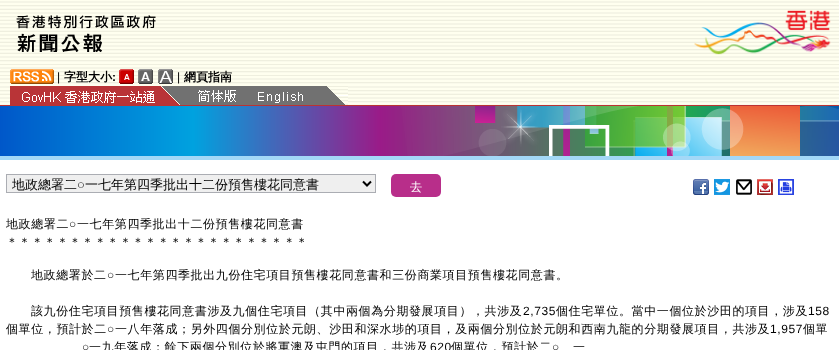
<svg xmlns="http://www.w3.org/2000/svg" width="839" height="350">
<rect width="100%" height="100%" fill="#fff"/>
<image x="0" y="0" width="839" height="105" href="media/1.png"/>
<rect y="105" width="839" height="1" fill="#b33"/>
<image x="16" y="15" width="140" height="37" href="media/2.png"/>
<image x="694" y="10" width="137" height="45" href="media/3.png"/>
<image x="10" y="69" width="44" height="15" href="media/4.png"/>
<text x="57" y="81" style="font-family:Liberation Sans;font-size:12px;fill:#000">|</text>
<text x="64" y="81" style="font-family:WenQuanYi Zen Hei;font-size:12px;font-weight:bold;fill:#000">字型大小</text>
<text x="112" y="81" style="font-family:Liberation Sans;font-size:12px;font-weight:bold;fill:#000">:</text>
<image x="119" y="69" width="15" height="15" href="media/5.png"/>
<image x="138" y="69" width="15" height="15" href="media/6.png"/>
<image x="158" y="69" width="15" height="15" href="media/7.png"/>
<text x="177" y="81" style="font-family:Liberation Sans;font-size:12px;fill:#000">|</text>
<text x="184" y="81" style="font-family:WenQuanYi Zen Hei;font-size:12px;font-weight:bold;fill:#000">網頁指南</text>
<rect x="180" y="86" width="147" height="19" fill="#717171"/>
<image x="10" y="86" width="170" height="19" href="media/8.png"/>
<image x="22" y="91" width="133" height="12" href="media/9.png"/>
<image x="198" y="90" width="38" height="12" href="media/10.png"/>
<image x="327" y="86" width="21" height="19" href="media/11.png"/>
<image x="258" y="92" width="45" height="11" href="media/12.png"/>
<image x="0" y="106" width="839" height="50" href="media/13.png"/>
<rect y="156" width="839" height="4" fill="#a3d8f7"/>
<rect x="6.5" y="174.5" width="369" height="18" fill="#efefef" stroke="#abadb3"/>
<path d="M363 181.5l4 4l4-4" fill="none" stroke="#000" stroke-width="2"/>
<text x="12" y="189" style="font-family:WenQuanYi Zen Hei;font-size:13px;font-weight:500;fill:#000">地政總署二</text>
<text x="77" y="189" style="font-family:Liberation Sans;font-size:13px;fill:#000">○</text>
<text x="85" y="189" style="font-family:WenQuanYi Zen Hei;font-size:13px;font-weight:500;fill:#000">一七年第四季批出十二份預售樓花同意書</text>
<rect x="391" y="174" width="50" height="23" rx="5" fill="#b82e8a"/>
<text x="410" y="191" style="font-family:WenQuanYi Zen Hei;font-size:12px;font-weight:500;fill:#fff">去</text>
<image x="693" y="179" width="16" height="16" href="media/14.png"/>
<image x="714" y="179" width="16" height="16" href="media/15.png"/>
<image x="736" y="179" width="16" height="16" href="media/16.png"/>
<image x="757" y="179" width="16" height="16" href="media/17.png"/>
<image x="778" y="179" width="16" height="16" href="media/18.png"/>
<text x="6" y="228" style="font-family:WenQuanYi Zen Hei;font-size:12px;font-weight:500;letter-spacing:0.6px;fill:#000">地政總署二</text>
<text x="69" y="228" style="font-family:Liberation Sans;font-size:12px;letter-spacing:0.6px;fill:#000">○</text>
<text x="77" y="228" style="font-family:WenQuanYi Zen Hei;font-size:12px;font-weight:500;letter-spacing:0.6px;fill:#000">一七年第四季批出十二份預售樓花同意書</text>
<text x="6" y="246" style="font-family:WenQuanYi Zen Hei;font-size:12px;font-weight:500;letter-spacing:0.6px;fill:#000">＊＊＊＊＊＊＊＊＊＊＊＊＊＊＊＊＊＊＊＊＊＊＊＊</text>
<text x="31" y="279" style="font-family:WenQuanYi Zen Hei;font-size:12px;font-weight:500;letter-spacing:0.6px;fill:#000">地政總署於二</text>
<text x="107" y="279" style="font-family:Liberation Sans;font-size:12px;letter-spacing:0.6px;fill:#000">○</text>
<text x="115" y="279" style="font-family:WenQuanYi Zen Hei;font-size:12px;font-weight:500;letter-spacing:0.6px;fill:#000">一七年第四季批出九份住宅項目預售樓花同意書和三份商業項目預售樓花同意書。</text>
<text x="31" y="315" style="font-family:WenQuanYi Zen Hei;font-size:12px;font-weight:500;letter-spacing:0.6px;fill:#000">該九份住宅項目預售樓花同意書涉及九個住宅項目（其中兩個為分期發展項目），共涉及</text>
<text x="523" y="315" style="font-family:Liberation Sans;font-size:12px;letter-spacing:0.6px;fill:#000">2,735</text>
<text x="556" y="315" style="font-family:WenQuanYi Zen Hei;font-size:12px;font-weight:500;letter-spacing:0.6px;fill:#000">個住宅單位。當中一個位於沙田的項目，涉及</text>
<text x="808" y="315" style="font-family:Liberation Sans;font-size:12px;letter-spacing:0.6px;fill:#000">158</text>
<text x="6" y="333" style="font-family:WenQuanYi Zen Hei;font-size:12px;font-weight:500;letter-spacing:0.6px;fill:#000">個單位，預計於二</text>
<text x="107" y="333" style="font-family:Liberation Sans;font-size:12px;letter-spacing:0.6px;fill:#000">○</text>
<text x="115" y="333" style="font-family:WenQuanYi Zen Hei;font-size:12px;font-weight:500;letter-spacing:0.6px;fill:#000">一八年落成；另外四個分別位於元朗、沙田和深水埗的項目，及兩個分別位於元朗和西南九龍的分期發展項目，共涉及</text>
<text x="770" y="333" style="font-family:Liberation Sans;font-size:12px;letter-spacing:0.6px;fill:#000">1,957</text>
<text x="803" y="333" style="font-family:WenQuanYi Zen Hei;font-size:12px;font-weight:500;letter-spacing:0.6px;fill:#000">個單</text>
<text x="82" y="351" style="font-family:Liberation Sans;font-size:12px;letter-spacing:0.6px;fill:#000">○</text>
<text x="89" y="351" style="font-family:WenQuanYi Zen Hei;font-size:12px;font-weight:500;letter-spacing:0.6px;fill:#000">一九年落成；餘下兩個分別位於將軍澳及屯門的項目，共涉及</text>
<text x="430" y="351" style="font-family:Liberation Sans;font-size:12px;letter-spacing:0.6px;fill:#000">620</text>
<text x="451" y="351" style="font-family:WenQuanYi Zen Hei;font-size:12px;font-weight:500;letter-spacing:0.6px;fill:#000">個單位，預計於二</text>
<text x="552" y="351" style="font-family:Liberation Sans;font-size:12px;letter-spacing:0.6px;fill:#000">○</text>
<text x="573" y="351" style="font-family:WenQuanYi Zen Hei;font-size:12px;font-weight:500;letter-spacing:0.6px;fill:#000">一</text>
</svg>
